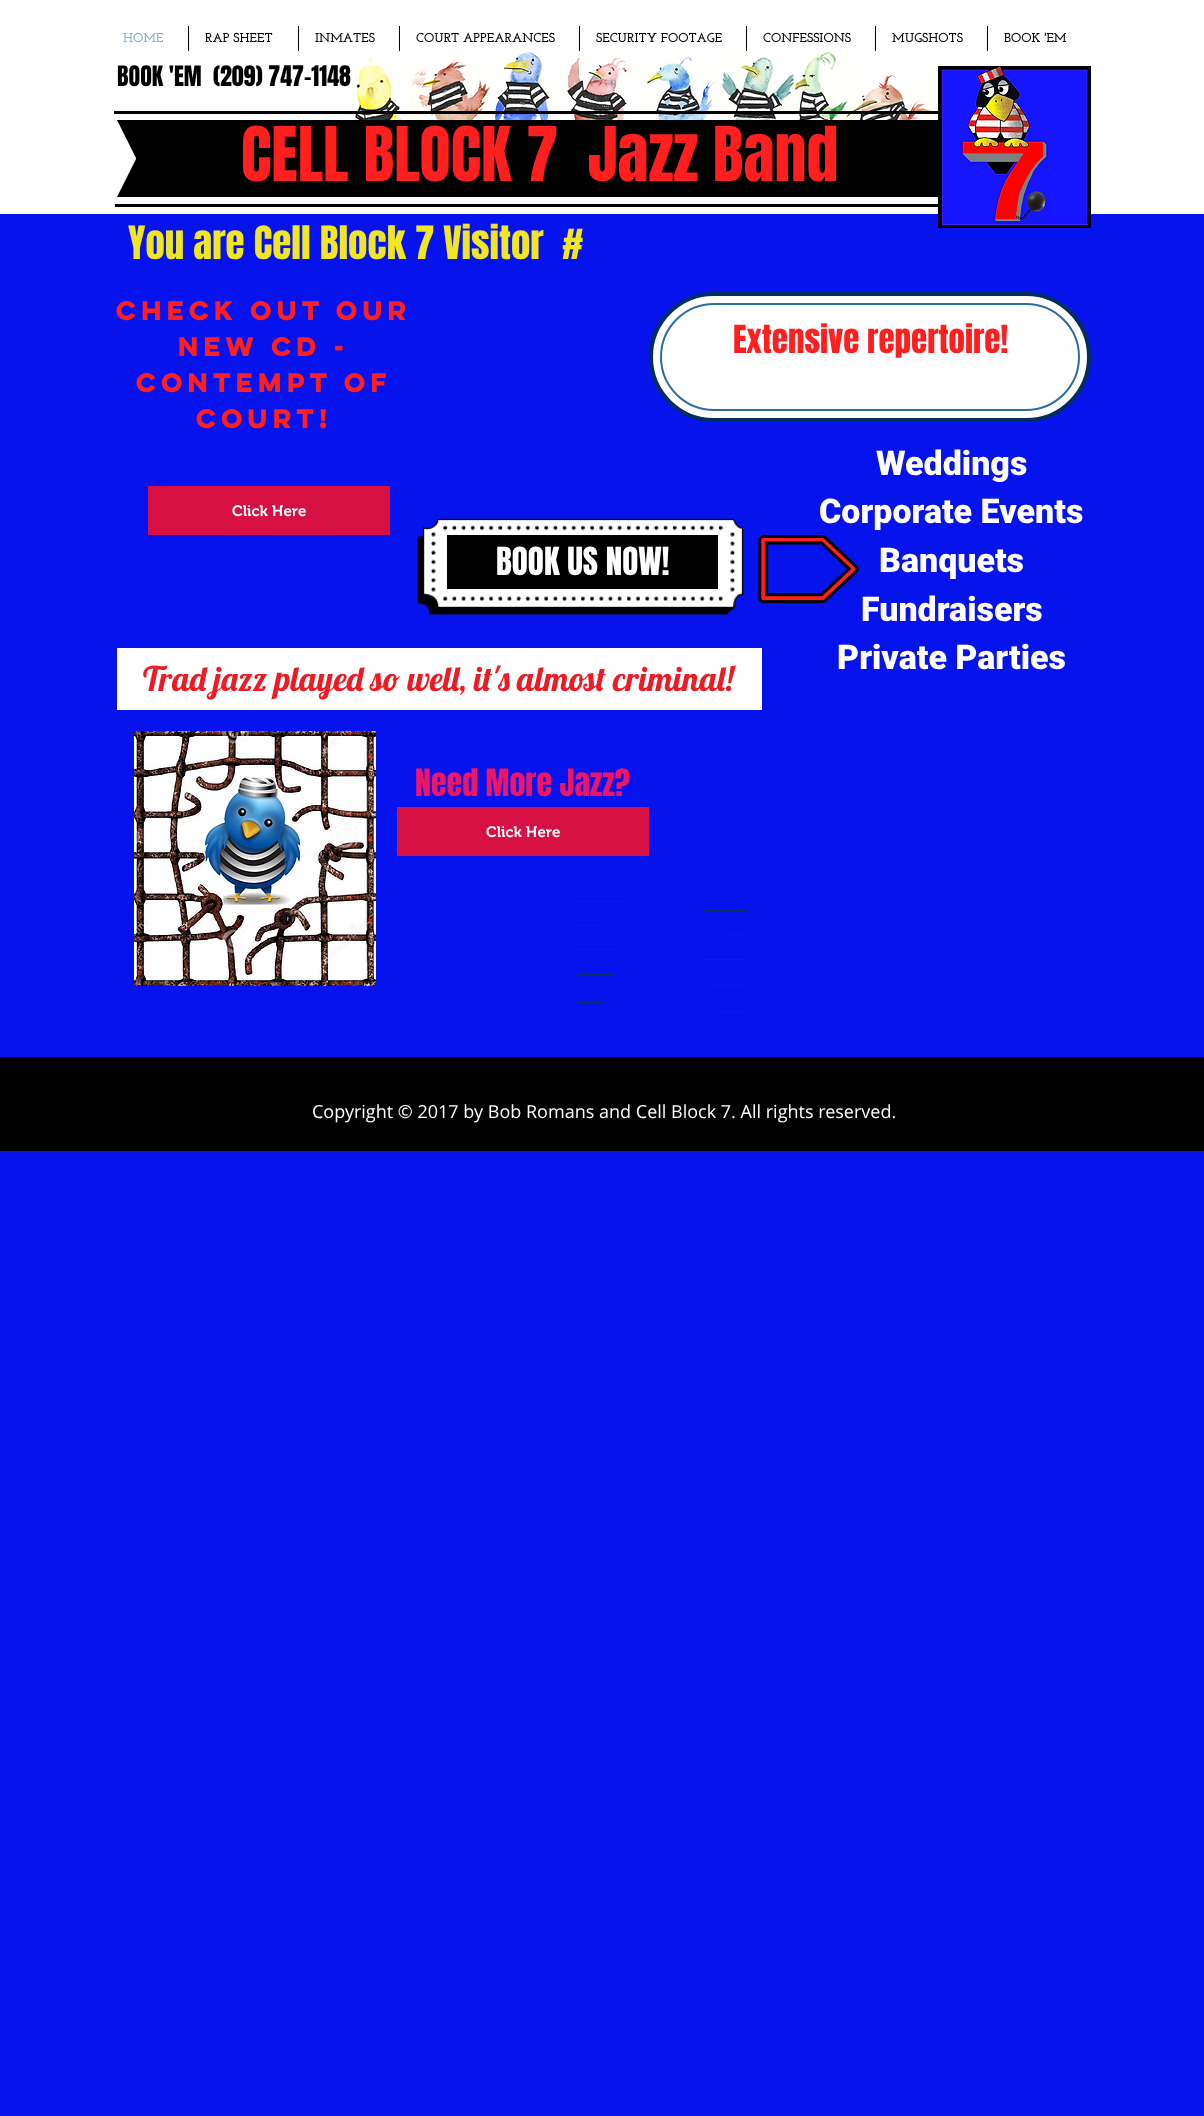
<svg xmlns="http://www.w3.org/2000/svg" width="1204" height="2116">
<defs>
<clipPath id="clip1"><rect x="117" y="120" width="483" height="39"/></clipPath>
<clipPath id="clip2"><rect x="599" y="120" width="482" height="39"/></clipPath>
<clipPath id="clip3"><rect x="117" y="158" width="483" height="39"/></clipPath>
<clipPath id="clip4"><rect x="599" y="158" width="482" height="39"/></clipPath>
</defs>
<rect width="100%" height="100%" fill="#0713ed"/>
<rect width="1204" height="214" fill="#fff"/>
<text x="123" y="42" style="font-family:Josefin Slab;font-size:13px;font-weight:bold;fill:#87b0d1">HOME</text>
<rect x="188" y="26" width="1" height="25" fill="#000"/>
<text x="205" y="42" style="font-family:Josefin Slab;font-size:13px;font-weight:bold;fill:#000">RAP SHEET</text>
<rect x="298" y="26" width="1" height="25" fill="#000"/>
<text x="315" y="42" style="font-family:Josefin Slab;font-size:13px;font-weight:bold;fill:#000">INMATES</text>
<rect x="399" y="26" width="1" height="25" fill="#000"/>
<text x="416" y="42" style="font-family:Josefin Slab;font-size:13px;font-weight:bold;fill:#000">COURT APPEARANCES</text>
<rect x="579" y="26" width="1" height="25" fill="#000"/>
<text x="596" y="42" style="font-family:Josefin Slab;font-size:13px;font-weight:bold;fill:#000">SECURITY FOOTAGE</text>
<rect x="746" y="26" width="1" height="25" fill="#000"/>
<text x="763" y="42" style="font-family:Josefin Slab;font-size:13px;font-weight:bold;fill:#000">CONFESSIONS</text>
<rect x="875" y="26" width="1" height="25" fill="#000"/>
<text x="892" y="42" style="font-family:Josefin Slab;font-size:13px;font-weight:bold;fill:#000">MUGSHOTS</text>
<rect x="987" y="26" width="1" height="25" fill="#000"/>
<text x="1004" y="42" style="font-family:Josefin Slab;font-size:13px;font-weight:bold;fill:#000">BOOK 'EM</text>
<text x="117" y="86" style="font-family:Anton;font-size:24px;fill:#000" xml:space="preserve">BOOK 'EM  (209) 747-1148</text>
<image x="351" y="51" width="581" height="69" href="media/1.png"/>
<rect x="114" y="111" width="824" height="3" fill="#000"/>
<rect x="115" y="204" width="823" height="3" fill="#000"/>
<g clip-path="url(#clip1)">
<path d="M117 120h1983l-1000 1000h-483z" fill="#000"/>
</g>
<g clip-path="url(#clip2)">
<path d="M-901 120h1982l-500 1000h-482z" fill="#000"/>
</g>
<g clip-path="url(#clip3)">
<path d="M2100 197h-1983l500-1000h483z" fill="#000"/>
</g>
<g clip-path="url(#clip4)">
<path d="M1081 197h-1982l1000-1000h482z" fill="#000"/>
</g>
<text x="241" y="181" style="font-family:Anton;font-size:64px;fill:#ff1f1f" xml:space="preserve">CELL BLOCK 7  Jazz Band</text>
<image x="938" y="66" width="153" height="162" href="media/2.png"/>
<text x="128" y="259" style="font-family:Anton;font-size:39px;fill:#f0e624" xml:space="preserve">You are Cell Block 7 Visitor  #</text>
<text x="116" y="320" style="font-family:'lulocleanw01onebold';font-size:24px;font-weight:bold;fill:#ff1f1f">Check out our</text>
<text x="178" y="356" style="font-family:'lulocleanw01onebold';font-size:24px;font-weight:bold;fill:#ff1f1f">new CD -</text>
<text x="136" y="392" style="font-family:'lulocleanw01onebold';font-size:24px;font-weight:bold;fill:#ff1f1f">Contempt of</text>
<text x="196" y="428" style="font-family:'lulocleanw01onebold';font-size:24px;font-weight:bold;fill:#ff1f1f">Court!</text>
<rect x="651" y="294" width="438" height="126" rx="63" fill="#fff" stroke="#002e5d" stroke-width="4"/>
<rect x="661" y="304" width="418" height="106" rx="53" fill="none" stroke="#2b6ca3" stroke-width="2"/>
<text x="733" y="353" style="font-family:Anton;font-size:33px;fill:#ff1f1f">Extensive repertoire!</text>
<rect x="148" y="486" width="242" height="49" fill="#d61043"/>
<text x="232" y="516" style="font-family:'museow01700';font-size:15px;font-weight:600;fill:#fff">Click Here</text>
<text x="876" y="475" style="font-family:Roboto;font-size:34px;font-weight:900;fill:#fff">Weddings</text>
<text x="819" y="523" style="font-family:Roboto;font-size:34px;font-weight:900;fill:#fff">Corporate Events</text>
<text x="879" y="572" style="font-family:Roboto;font-size:34px;font-weight:900;fill:#fff">Banquets</text>
<text x="861" y="621" style="font-family:Roboto;font-size:34px;font-weight:900;fill:#fff">Fundraisers</text>
<text x="837" y="669" style="font-family:Roboto;font-size:34px;font-weight:900;fill:#fff">Private Parties</text>
<image x="417" y="518" width="327" height="97" href="media/3.png"/>
<image x="758" y="535" width="101" height="69" href="media/4.png"/>
<rect x="447" y="535" width="271" height="54" fill="#000"/>
<text x="496" y="575" style="font-family:Anton;font-size:33px;fill:#fff">BOOK US NOW!</text>
<rect x="117" y="648" width="645" height="62" fill="#fff"/>
<text x="143" y="691" style="font-family:Lobster;font-size:34px;fill:#ed1c24">Trad jazz played so well, it's almost criminal!</text>
<image x="134" y="731" width="242" height="255" href="media/5.png"/>
<text x="415" y="796" style="font-family:Anton;font-size:32px;fill:#ed1566">Need More Jazz?</text>
<rect x="397" y="807" width="252" height="49" fill="#d61043"/>
<text x="486" y="837" style="font-family:'museow01700';font-size:15px;font-weight:600;fill:#fff">Click Here</text>
<path d="M578 901.5h44m-44 24h21m-21 24h36" fill="none" stroke="#0f3a69" stroke-dasharray="1 1"/>
<path d="M704 910.5h44m-23 24h21m-45 25h46" fill="none" stroke="#0f3a69" stroke-dasharray="1 1"/>
<path d="M578 974.5h36m-36 28h26" fill="none" stroke="#0f3a69" stroke-dasharray="1 1"/>
<path d="M710 985.5h36m-28 26h26" fill="none" stroke="#0f3a69" stroke-dasharray="1 1"/>
<rect y="1057" width="1204" height="94" fill="#000"/>
<text x="312" y="1118" style="font-family:Open Sans;font-size:18px;fill:#fff">Copyright © 2017 by Bob Romans and Cell Block 7. All rights reserved.</text>
</svg>
